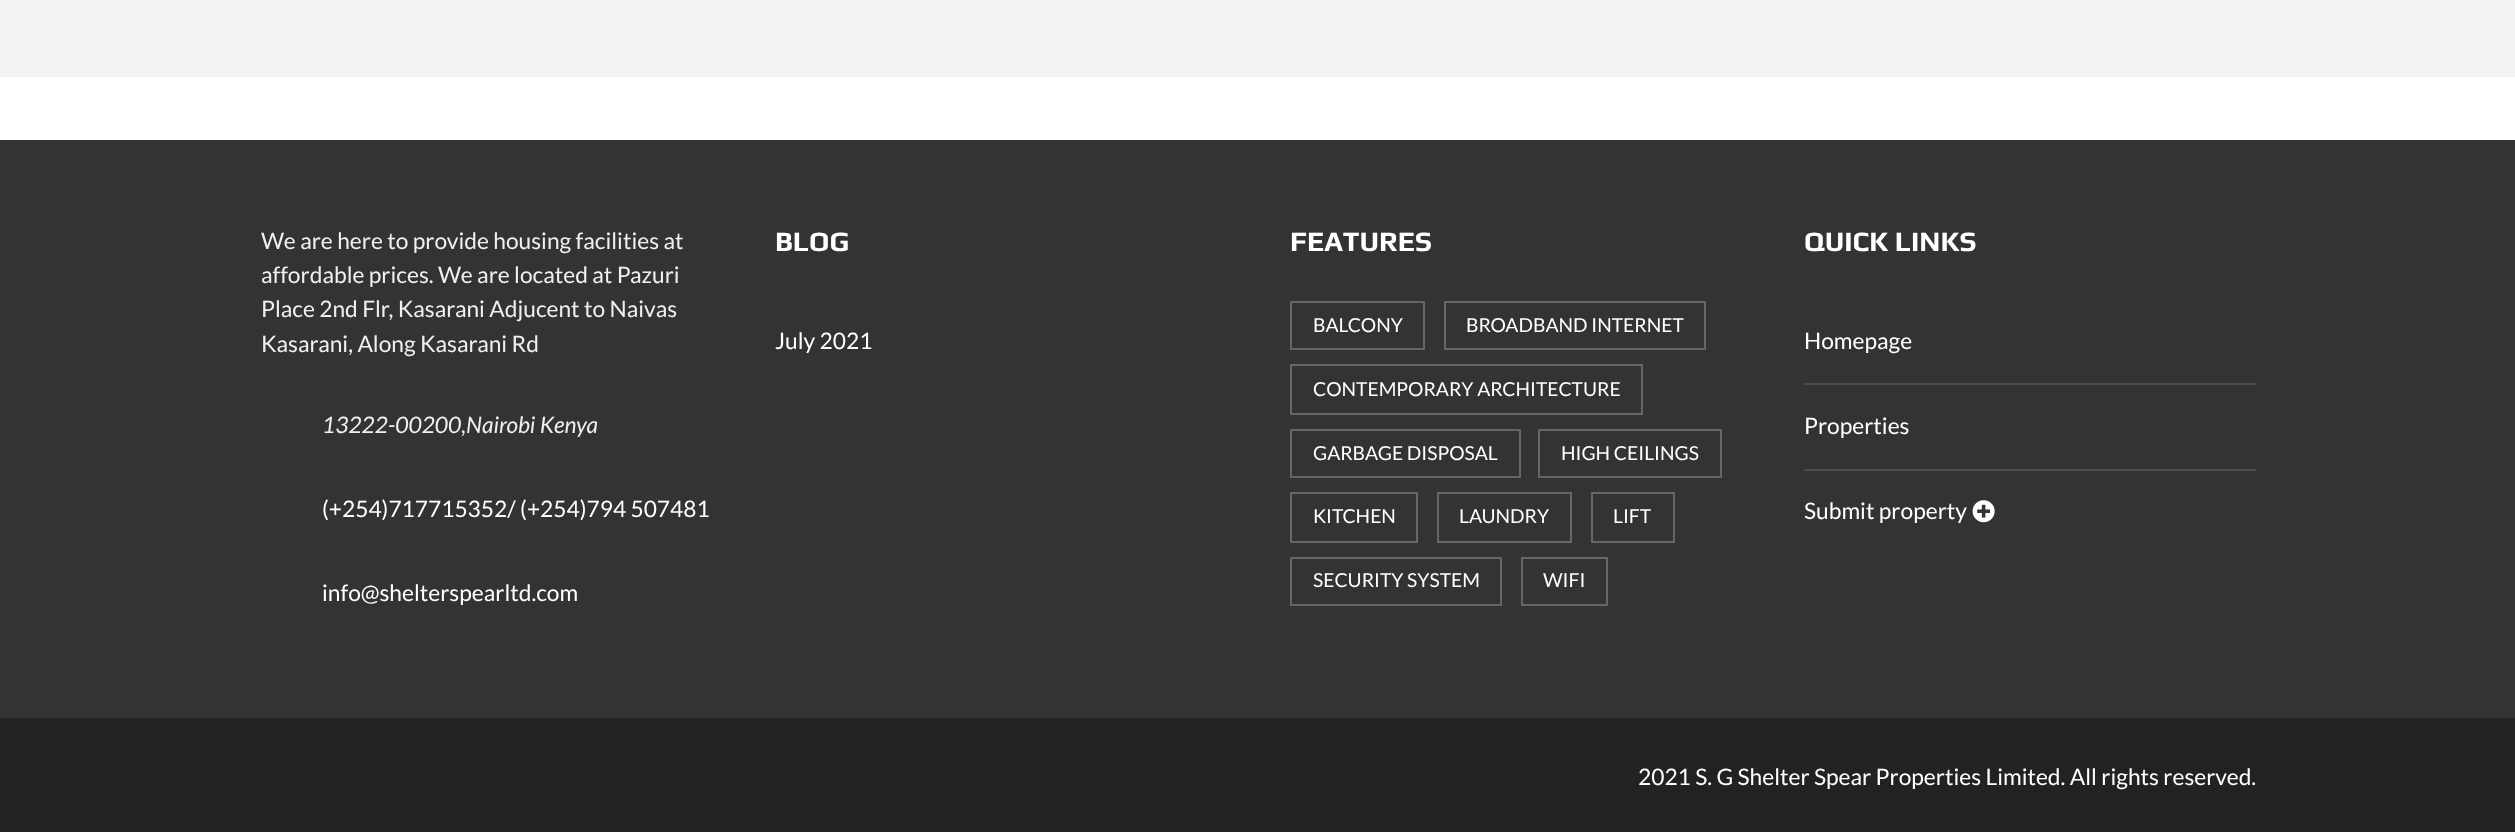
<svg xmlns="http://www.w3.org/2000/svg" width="2515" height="832">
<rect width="100%" height="100%" fill="#fff"/>
<rect width="2515" height="77" fill="#f2f2f2"/>
<rect y="140" width="2515" height="578" fill="#333"/>
<text x="261" y="249" style="font-family:Lato;font-size:22.75px;fill:#f0f0f0">We are here to provide housing facilities at</text>
<text x="261" y="283" style="font-family:Lato;font-size:22.75px;fill:#f0f0f0">affordable prices. We are located at Pazuri</text>
<text x="261" y="317" style="font-family:Lato;font-size:22.75px;fill:#f0f0f0">Place 2nd Flr, Kasarani Adjucent to Naivas</text>
<text x="261" y="352" style="font-family:Lato;font-size:22.75px;fill:#f0f0f0">Kasarani, Along Kasarani Rd</text>
<text x="322" y="433" style="font-family:Lato;font-size:22.75px;font-style:italic;fill:#f0f0f0">13222-00200,Nairobi Kenya</text>
<text x="322" y="517" style="font-family:Lato;font-size:22.75px;fill:#fff">(+254)717715352/ (+254)794 507481</text>
<text x="322" y="601" style="font-family:Lato;font-size:22.75px;fill:#fff">info@shelterspearltd.com</text>
<text x="775" y="251" style="font-family:Play;font-size:28px;font-weight:bold;fill:#fff">BLOG</text>
<text x="775" y="349" style="font-family:Lato;font-size:22.75px;fill:#fff">July 2021</text>
<text x="1290" y="251" style="font-family:Play;font-size:28px;font-weight:bold;fill:#fff">FEATURES</text>
<rect x="1291" y="302" width="133" height="47" fill="none" stroke="#666" stroke-width="2"/>
<text x="1313" y="332" style="font-family:Lato;font-size:19.25px;fill:#fff">BALCONY</text>
<rect x="1445" y="302" width="260" height="47" fill="none" stroke="#666" stroke-width="2"/>
<text x="1466" y="332" style="font-family:Lato;font-size:19.25px;fill:#fff">BROADBAND INTERNET</text>
<rect x="1291" y="365" width="351" height="49" fill="none" stroke="#666" stroke-width="2"/>
<text x="1313" y="396" style="font-family:Lato;font-size:19.25px;fill:#fff">CONTEMPORARY ARCHITECTURE</text>
<rect x="1291" y="430" width="229" height="47" fill="none" stroke="#666" stroke-width="2"/>
<text x="1313" y="460" style="font-family:Lato;font-size:19.25px;fill:#fff">GARBAGE DISPOSAL</text>
<rect x="1539" y="430" width="182" height="47" fill="none" stroke="#666" stroke-width="2"/>
<text x="1561" y="460" style="font-family:Lato;font-size:19.25px;fill:#fff">HIGH CEILINGS</text>
<rect x="1291" y="493" width="126" height="49" fill="none" stroke="#666" stroke-width="2"/>
<text x="1313" y="523" style="font-family:Lato;font-size:19.25px;fill:#fff">KITCHEN</text>
<rect x="1438" y="493" width="133" height="49" fill="none" stroke="#666" stroke-width="2"/>
<text x="1459" y="523" style="font-family:Lato;font-size:19.25px;fill:#fff">LAUNDRY</text>
<rect x="1592" y="493" width="82" height="49" fill="none" stroke="#666" stroke-width="2"/>
<text x="1613" y="523" style="font-family:Lato;font-size:19.25px;fill:#fff">LIFT</text>
<rect x="1291" y="558" width="210" height="47" fill="none" stroke="#666" stroke-width="2"/>
<text x="1313" y="587" style="font-family:Lato;font-size:19.25px;fill:#fff">SECURITY SYSTEM</text>
<rect x="1522" y="558" width="85" height="47" fill="none" stroke="#666" stroke-width="2"/>
<text x="1543" y="587" style="font-family:Lato;font-size:19.25px;fill:#fff">WIFI</text>
<text x="1804" y="251" style="font-family:Play;font-size:28px;font-weight:bold;fill:#fff">QUICK LINKS</text>
<rect x="1804" y="383" width="452" height="2" fill="#4d4d4d"/>
<text x="1804" y="349" style="font-family:Lato;font-size:22.75px;fill:#fff">Homepage</text>
<rect x="1804" y="469" width="452" height="2" fill="#4d4d4d"/>
<text x="1804" y="434" style="font-family:Lato;font-size:22.75px;fill:#fff">Properties</text>
<text x="1804" y="519" style="font-family:Lato;font-size:22.75px;fill:#fff">Submit property</text>
<image x="1972" y="500" width="23" height="23" href="media/1.png"/>
<rect y="718" width="2515" height="114" fill="#222"/>
<text x="1638" y="785" style="font-family:Lato;font-size:22.75px;fill:#fff">2021 S. G Shelter Spear Properties Limited. All rights reserved.</text>
</svg>
